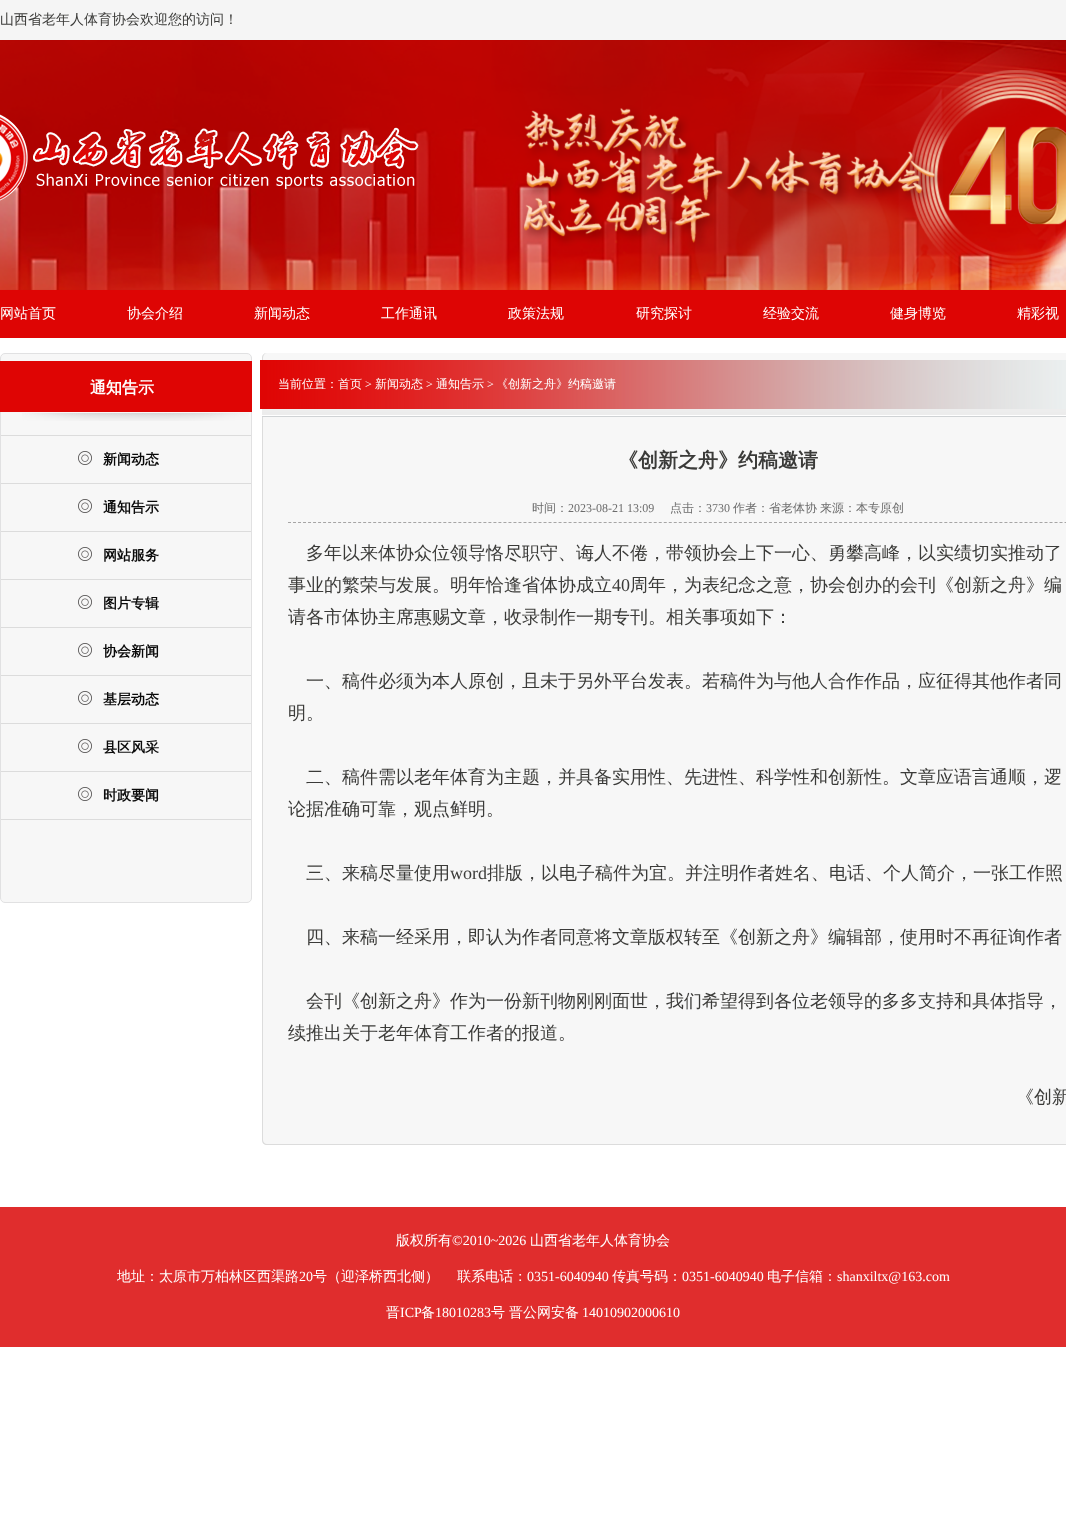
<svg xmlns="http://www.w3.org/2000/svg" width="1066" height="1539">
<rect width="100%" height="100%" fill="#fff"/>
<rect width="1066" height="40" fill="#f5f5f5"/>
<text x="0" y="24" style="font-family:WenQuanYi Zen Hei;font-size:14px;font-weight:500;fill:#3b3b39">山西省老年人体育协会欢迎您的访问！</text>
<image x="0" y="40" width="1066" height="250" href="media/1.png"/>
<image x="0" y="114" width="419" height="87" href="media/2.png"/>
<rect y="290" width="1066" height="48" fill="#de0504"/>
<text x="0" y="318" style="font-family:WenQuanYi Zen Hei;font-size:14px;font-weight:500;fill:#fff">网站首页</text>
<text x="127" y="318" style="font-family:WenQuanYi Zen Hei;font-size:14px;font-weight:500;fill:#fff">协会介绍</text>
<text x="254" y="318" style="font-family:WenQuanYi Zen Hei;font-size:14px;font-weight:500;fill:#fff">新闻动态</text>
<text x="381" y="318" style="font-family:WenQuanYi Zen Hei;font-size:14px;font-weight:500;fill:#fff">工作通讯</text>
<text x="508" y="318" style="font-family:WenQuanYi Zen Hei;font-size:14px;font-weight:500;fill:#fff">政策法规</text>
<text x="636" y="318" style="font-family:WenQuanYi Zen Hei;font-size:14px;font-weight:500;fill:#fff">研究探讨</text>
<text x="763" y="318" style="font-family:WenQuanYi Zen Hei;font-size:14px;font-weight:500;fill:#fff">经验交流</text>
<text x="890" y="318" style="font-family:WenQuanYi Zen Hei;font-size:14px;font-weight:500;fill:#fff">健身博览</text>
<text x="1017" y="318" style="font-family:WenQuanYi Zen Hei;font-size:14px;font-weight:500;fill:#fff">精彩视</text>
<rect x="0.5" y="353.5" width="251" height="549" rx="4.5" fill="#f7f7f7" stroke="#e1e1e2"/>
<image x="22" y="413" width="227" height="8" href="media/3.png"/>
<rect y="361" width="252" height="51" fill="#df0504"/>
<text x="90" y="393" style="font-family:WenQuanYi Zen Hei;font-size:16px;font-weight:bold;fill:#fff">通知告示</text>
<rect x="1" y="819" width="250" height="1" fill="#dcdcdc"/>
<rect x="1" y="435" width="250" height="1" fill="#dcdcdc"/>
<image x="78" y="451" width="14" height="14" href="media/4.png"/>
<text x="103" y="464" style="font-family:WenQuanYi Zen Hei;font-size:14px;font-weight:bold;fill:#0a0a0a">新闻动态</text>
<rect x="1" y="483" width="250" height="1" fill="#dcdcdc"/>
<image x="78" y="499" width="14" height="14" href="media/4.png"/>
<text x="103" y="512" style="font-family:WenQuanYi Zen Hei;font-size:14px;font-weight:bold;fill:#0a0a0a">通知告示</text>
<rect x="1" y="531" width="250" height="1" fill="#dcdcdc"/>
<image x="78" y="547" width="14" height="14" href="media/4.png"/>
<text x="103" y="560" style="font-family:WenQuanYi Zen Hei;font-size:14px;font-weight:bold;fill:#0a0a0a">网站服务</text>
<rect x="1" y="579" width="250" height="1" fill="#dcdcdc"/>
<image x="78" y="595" width="14" height="14" href="media/4.png"/>
<text x="103" y="608" style="font-family:WenQuanYi Zen Hei;font-size:14px;font-weight:bold;fill:#0a0a0a">图片专辑</text>
<rect x="1" y="627" width="250" height="1" fill="#dcdcdc"/>
<image x="78" y="643" width="14" height="14" href="media/4.png"/>
<text x="103" y="656" style="font-family:WenQuanYi Zen Hei;font-size:14px;font-weight:bold;fill:#0a0a0a">协会新闻</text>
<rect x="1" y="675" width="250" height="1" fill="#dcdcdc"/>
<image x="78" y="691" width="14" height="14" href="media/4.png"/>
<text x="103" y="704" style="font-family:WenQuanYi Zen Hei;font-size:14px;font-weight:bold;fill:#0a0a0a">基层动态</text>
<rect x="1" y="723" width="250" height="1" fill="#dcdcdc"/>
<image x="78" y="739" width="14" height="14" href="media/4.png"/>
<text x="103" y="752" style="font-family:WenQuanYi Zen Hei;font-size:14px;font-weight:bold;fill:#0a0a0a">县区风采</text>
<rect x="1" y="771" width="250" height="1" fill="#dcdcdc"/>
<image x="78" y="787" width="14" height="14" href="media/4.png"/>
<text x="103" y="800" style="font-family:WenQuanYi Zen Hei;font-size:14px;font-weight:bold;fill:#0a0a0a">时政要闻</text>
<rect x="262" y="353" width="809" height="792" rx="5" fill="#f7f7f7"/>
<path d="M267 353h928c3 0 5 2 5 5v782c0 3-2 5-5 5h-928c-3 0-5-2-5-5v-782c0-3 2-5 5-5zm0 0h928c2 0 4 2 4 5v782c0 2-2 4-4 4h-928c-2 0-4-2-4-4v-782c0-3 2-5 4-5z" fill="#dcdcdc" fill-rule="evenodd"/>
<image x="262" y="409" width="804" height="7" href="media/5.png"/>
<rect x="262" y="416" width="804" height="1" fill="#d0d3d5"/>
<image x="260" y="360" width="806" height="49" href="media/6.png"/>
<text x="278" y="388" style="font-family:WenQuanYi Zen Hei;font-size:12px;font-weight:500;fill:#fff">当前位置：首页</text>
<text x="365" y="388" style="font-family:Liberation Serif;font-size:12px;fill:#fff">&gt;</text>
<text x="375" y="388" style="font-family:WenQuanYi Zen Hei;font-size:12px;font-weight:500;fill:#fff">新闻动态</text>
<text x="426" y="388" style="font-family:Liberation Serif;font-size:12px;fill:#fff">&gt;</text>
<text x="436" y="388" style="font-family:WenQuanYi Zen Hei;font-size:12px;font-weight:500;fill:#fff">通知告示</text>
<text x="487" y="388" style="font-family:Liberation Serif;font-size:12px;fill:#fff">&gt;</text>
<text x="496" y="388" style="font-family:WenQuanYi Zen Hei;font-size:12px;font-weight:500;fill:#fff">《创新之舟》约稿邀请</text>
<text x="618" y="467" style="font-family:WenQuanYi Zen Hei;font-size:20px;font-weight:bold;fill:#3b3b39">《创新之舟》约稿邀请</text>
<path d="M288 522.5h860" fill="none" stroke="#a6a5a5" stroke-dasharray="3 2.01"/>
<text x="532" y="512" style="font-family:WenQuanYi Zen Hei;font-size:12px;font-weight:500;fill:#6c6c6c">时间：</text>
<text x="568" y="512" style="font-family:Liberation Serif;font-size:12px;fill:#6c6c6c">2023-08-21 13:09</text>
<text x="670" y="512" style="font-family:WenQuanYi Zen Hei;font-size:12px;font-weight:500;fill:#6c6c6c">点击：</text>
<text x="706" y="512" style="font-family:Liberation Serif;font-size:12px;fill:#6c6c6c">3730</text>
<text x="733" y="512" style="font-family:WenQuanYi Zen Hei;font-size:12px;font-weight:500;fill:#6c6c6c">作者：省老体协</text>
<text x="820" y="512" style="font-family:WenQuanYi Zen Hei;font-size:12px;font-weight:500;fill:#6c6c6c">来源：本专原创</text>
<text x="306" y="559" style="font-family:WenQuanYi Zen Hei;font-size:18px;font-weight:500;fill:#3b3b39">多年以来体协众位领导恪尽职守、诲人不倦，带领协会上下一心、勇攀高峰，以实绩切实推动了</text>
<text x="288" y="591" style="font-family:WenQuanYi Zen Hei;font-size:18px;font-weight:500;fill:#3b3b39">事业的繁荣与发展。明年恰逢省体协成立</text>
<text x="612" y="591" style="font-family:Liberation Serif;font-size:18px;fill:#3b3b39">40</text>
<text x="630" y="591" style="font-family:WenQuanYi Zen Hei;font-size:18px;font-weight:500;fill:#3b3b39">周年，为表纪念之意，协会创办的会刊《创新之舟》编</text>
<text x="288" y="623" style="font-family:WenQuanYi Zen Hei;font-size:18px;font-weight:500;fill:#3b3b39">请各市体协主席惠赐文章，收录制作一期专刊。相关事项如下：</text>
<text x="306" y="687" style="font-family:WenQuanYi Zen Hei;font-size:18px;font-weight:500;fill:#3b3b39">一、稿件必须为本人原创，且未于另外平台发表。若稿件为与他人合作作品，应征得其他作者同</text>
<text x="288" y="719" style="font-family:WenQuanYi Zen Hei;font-size:18px;font-weight:500;fill:#3b3b39">明。</text>
<text x="306" y="783" style="font-family:WenQuanYi Zen Hei;font-size:18px;font-weight:500;fill:#3b3b39">二、稿件需以老年体育为主题，并具备实用性、先进性、科学性和创新性。文章应语言通顺，逻</text>
<text x="288" y="815" style="font-family:WenQuanYi Zen Hei;font-size:18px;font-weight:500;fill:#3b3b39">论据准确可靠，观点鲜明。</text>
<text x="306" y="879" style="font-family:WenQuanYi Zen Hei;font-size:18px;font-weight:500;fill:#3b3b39">三、来稿尽量使用</text>
<text x="450" y="879" style="font-family:Liberation Serif;font-size:18px;fill:#3b3b39">word</text>
<text x="487" y="879" style="font-family:WenQuanYi Zen Hei;font-size:18px;font-weight:500;fill:#3b3b39">排版，以电子稿件为宜。并注明作者姓名、电话、个人简介，一张工作照</text>
<text x="306" y="943" style="font-family:WenQuanYi Zen Hei;font-size:18px;font-weight:500;fill:#3b3b39">四、来稿一经采用，即认为作者同意将文章版权转至《创新之舟》编辑部，使用时不再征询作者</text>
<text x="306" y="1007" style="font-family:WenQuanYi Zen Hei;font-size:18px;font-weight:500;fill:#3b3b39">会刊《创新之舟》作为一份新刊物刚刚面世，我们希望得到各位老领导的多多支持和具体指导，</text>
<text x="288" y="1039" style="font-family:WenQuanYi Zen Hei;font-size:18px;font-weight:500;fill:#3b3b39">续推出关于老年体育工作者的报道。</text>
<text x="1016" y="1103" style="font-family:WenQuanYi Zen Hei;font-size:18px;font-weight:500;fill:#3b3b39">《创新</text>
<rect y="1207" width="1066" height="140" fill="#e02d2d"/>
<text x="396" y="1245" style="font-family:WenQuanYi Zen Hei;font-size:14px;font-weight:500;fill:#fff">版权所有</text>
<text x="452" y="1245" style="font-family:Liberation Serif;font-size:14px;fill:#fff">©2010~2026</text>
<text x="530" y="1245" style="font-family:WenQuanYi Zen Hei;font-size:14px;font-weight:500;fill:#fff">山西省老年人体育协会</text>
<text x="117" y="1281" style="font-family:WenQuanYi Zen Hei;font-size:14px;font-weight:500;fill:#fff">地址：太原市万柏林区西渠路</text>
<text x="299" y="1281" style="font-family:Liberation Serif;font-size:14px;fill:#fff">20</text>
<text x="313" y="1281" style="font-family:WenQuanYi Zen Hei;font-size:14px;font-weight:500;fill:#fff">号（迎泽桥西北侧） 　联系电话：</text>
<text x="527" y="1281" style="font-family:Liberation Serif;font-size:14px;fill:#fff">0351-6040940</text>
<text x="612" y="1281" style="font-family:WenQuanYi Zen Hei;font-size:14px;font-weight:500;fill:#fff">传真号码：</text>
<text x="682" y="1281" style="font-family:Liberation Serif;font-size:14px;fill:#fff">0351-6040940</text>
<text x="767" y="1281" style="font-family:WenQuanYi Zen Hei;font-size:14px;font-weight:500;fill:#fff">电子信箱：</text>
<text x="837" y="1281" style="font-family:Liberation Serif;font-size:14px;fill:#fff">shanxiltx@163.com</text>
<text x="386" y="1317" style="font-family:WenQuanYi Zen Hei;font-size:14px;font-weight:500;fill:#fff">晋</text>
<text x="400" y="1317" style="font-family:Liberation Serif;font-size:14px;fill:#fff">ICP</text>
<text x="421" y="1317" style="font-family:WenQuanYi Zen Hei;font-size:14px;font-weight:500;fill:#fff">备</text>
<text x="435" y="1317" style="font-family:Liberation Serif;font-size:14px;fill:#fff">18010283</text>
<text x="491" y="1317" style="font-family:WenQuanYi Zen Hei;font-size:14px;font-weight:500;fill:#fff">号</text>
<text x="509" y="1317" style="font-family:WenQuanYi Zen Hei;font-size:14px;font-weight:500;fill:#fff">晋公网安备</text>
<text x="582" y="1317" style="font-family:Liberation Serif;font-size:14px;fill:#fff">14010902000610</text>
</svg>
